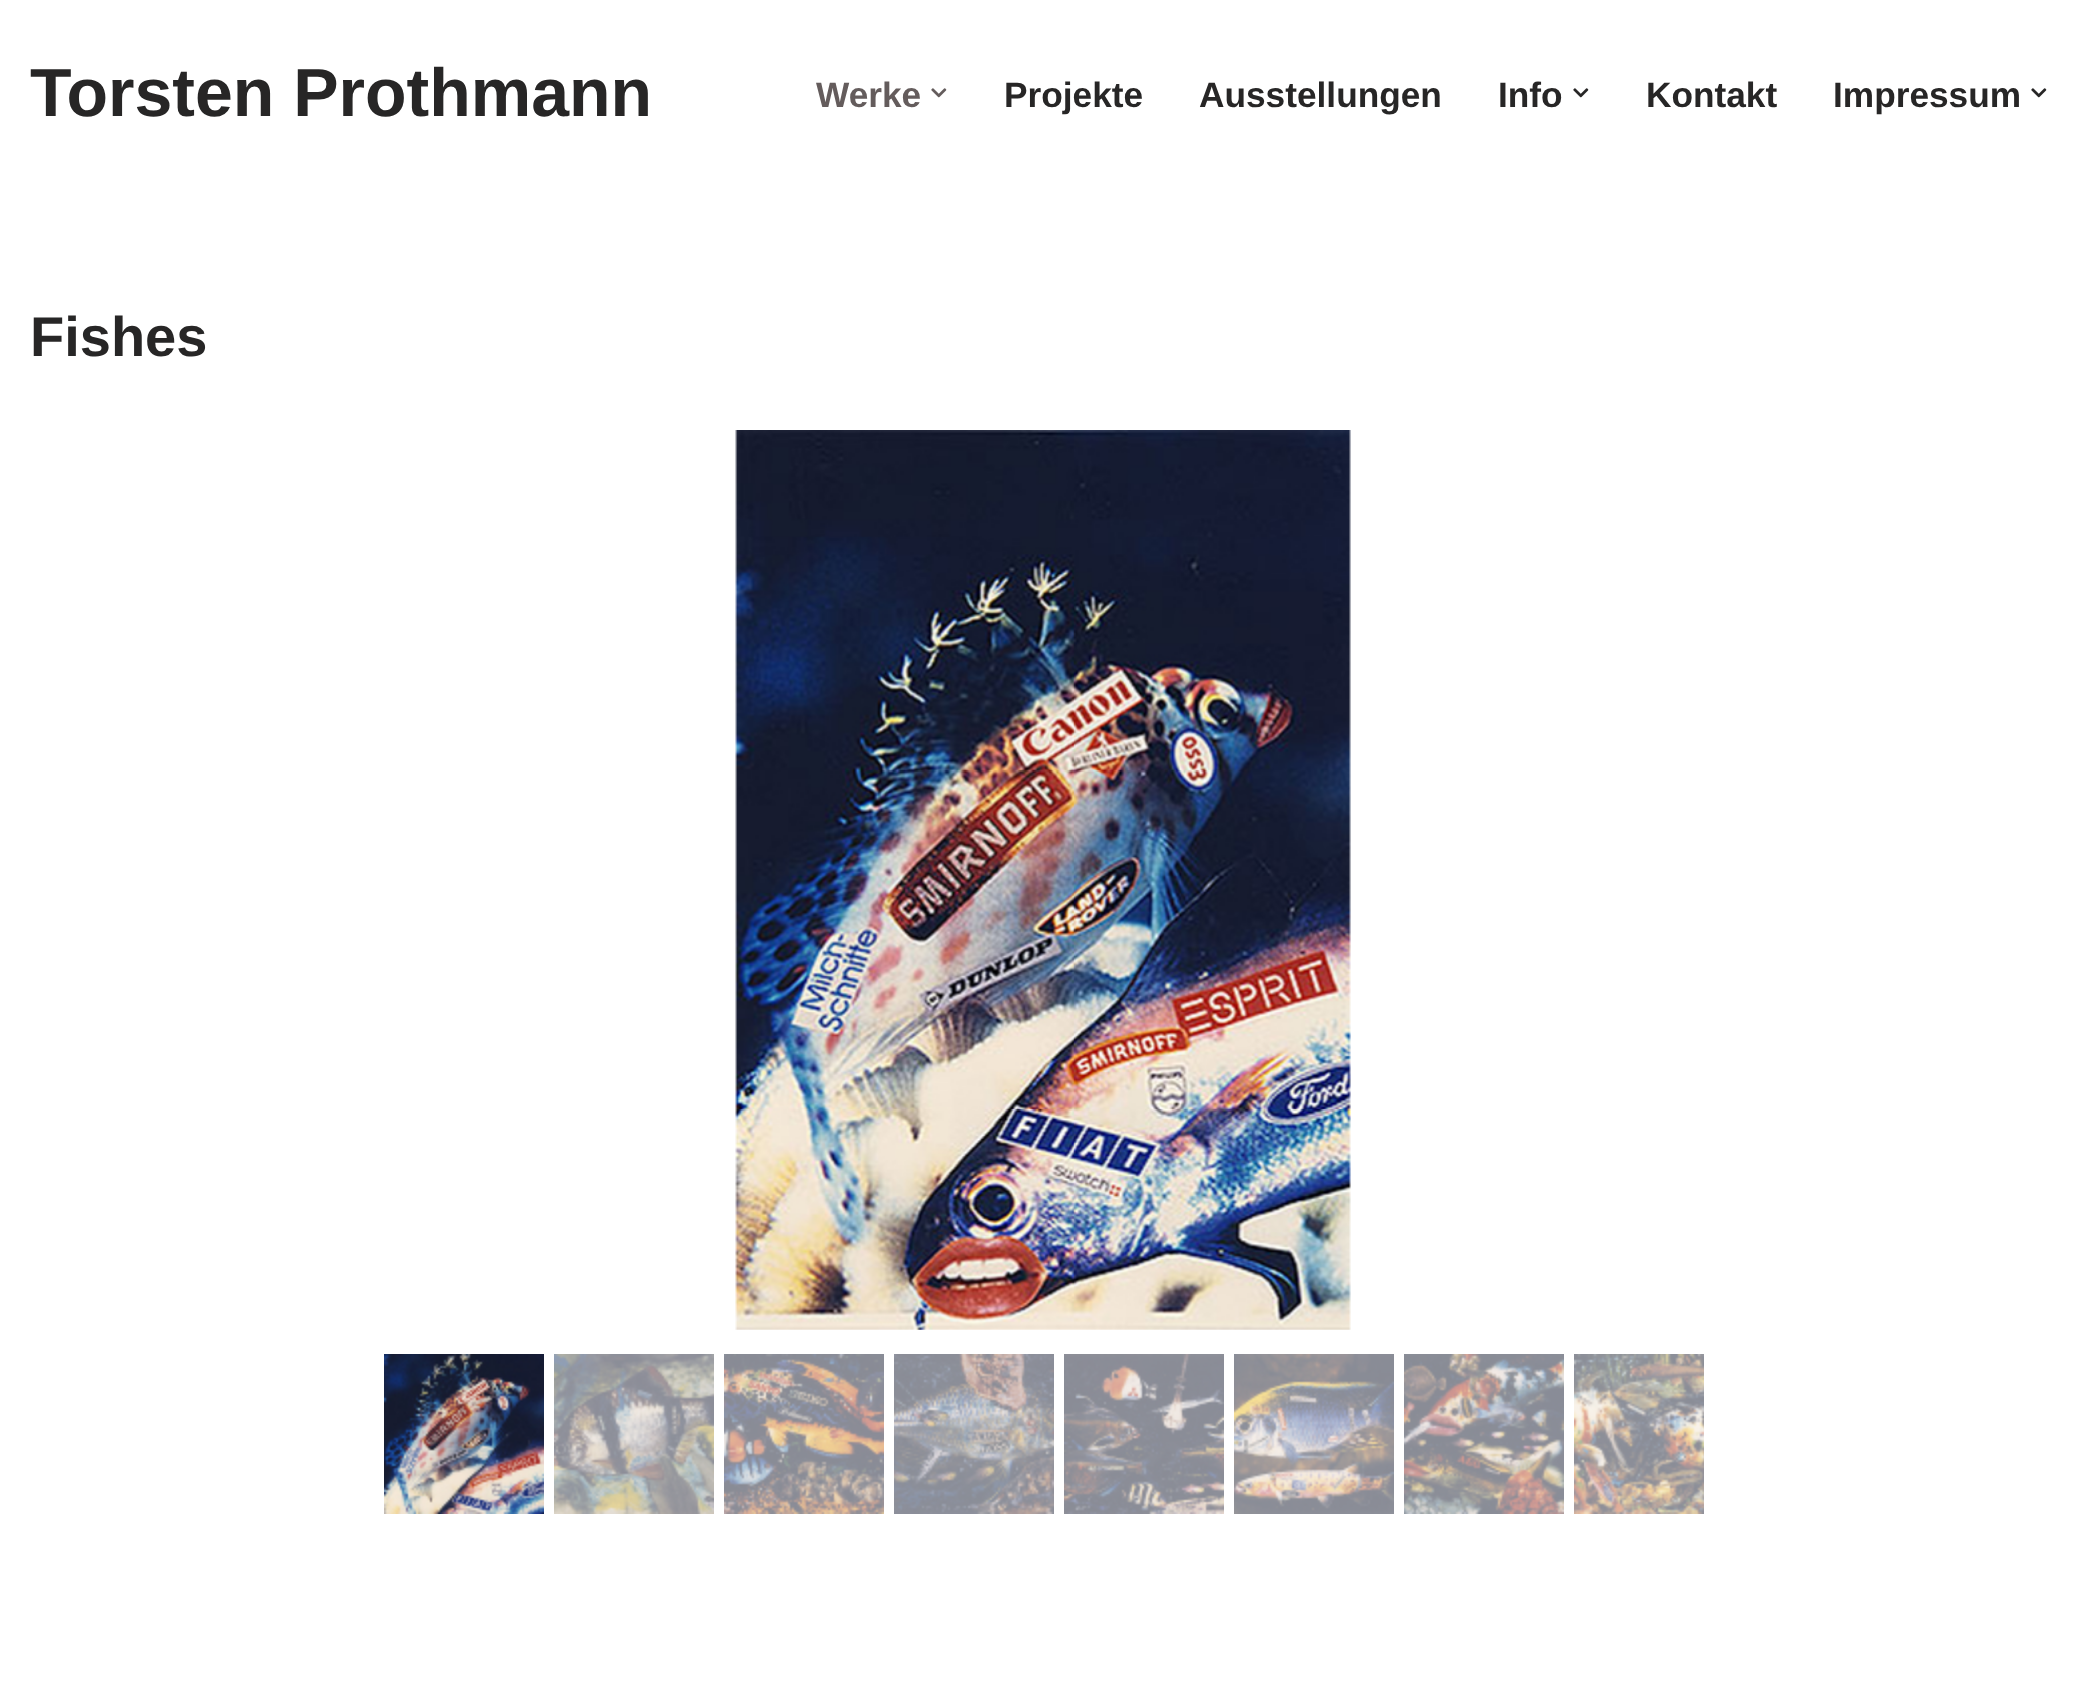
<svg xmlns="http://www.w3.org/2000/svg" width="2086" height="1693">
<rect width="100%" height="100%" fill="#fff"/>
<text x="30" y="116" style="font-family:Liberation Sans;font-size:68px;font-weight:bold;fill:#272626">Torsten Prothmann</text>
<text x="816" y="107" style="font-family:Liberation Sans;font-size:35.25px;font-weight:bold;fill:#645c5c">Werke</text>
<image x="931" y="88" width="16" height="10" href="media/1.png"/>
<text x="1004" y="107" style="font-family:Liberation Sans;font-size:35.25px;font-weight:bold;fill:#272626">Projekte</text>
<text x="1199" y="107" style="font-family:Liberation Sans;font-size:35.25px;font-weight:bold;fill:#272626">Ausstellungen</text>
<text x="1498" y="107" style="font-family:Liberation Sans;font-size:35.25px;font-weight:bold;fill:#272626">Info</text>
<image x="1573" y="88" width="16" height="10" href="media/2.png"/>
<text x="1646" y="107" style="font-family:Liberation Sans;font-size:35.25px;font-weight:bold;fill:#272626">Kontakt</text>
<text x="1833" y="107" style="font-family:Liberation Sans;font-size:35.25px;font-weight:bold;fill:#272626">Impressum</text>
<image x="2031" y="88" width="16" height="10" href="media/2.png"/>
<text x="30" y="356" style="font-family:Liberation Sans;font-size:56px;font-weight:bold;fill:#272626">Fishes</text>
<image x="735" y="430" width="616" height="900" href="media/3.png"/>
<image x="384" y="1354" width="160" height="160" href="media/4.png"/>
<image x="554" y="1354" width="160" height="160" href="media/5.png"/>
<image x="724" y="1354" width="160" height="160" href="media/6.png"/>
<image x="894" y="1354" width="160" height="160" href="media/7.png"/>
<image x="1064" y="1354" width="160" height="160" href="media/8.png"/>
<image x="1234" y="1354" width="160" height="160" href="media/9.png"/>
<image x="1404" y="1354" width="160" height="160" href="media/10.png"/>
<image x="1574" y="1354" width="130" height="160" href="media/11.png"/>
</svg>
